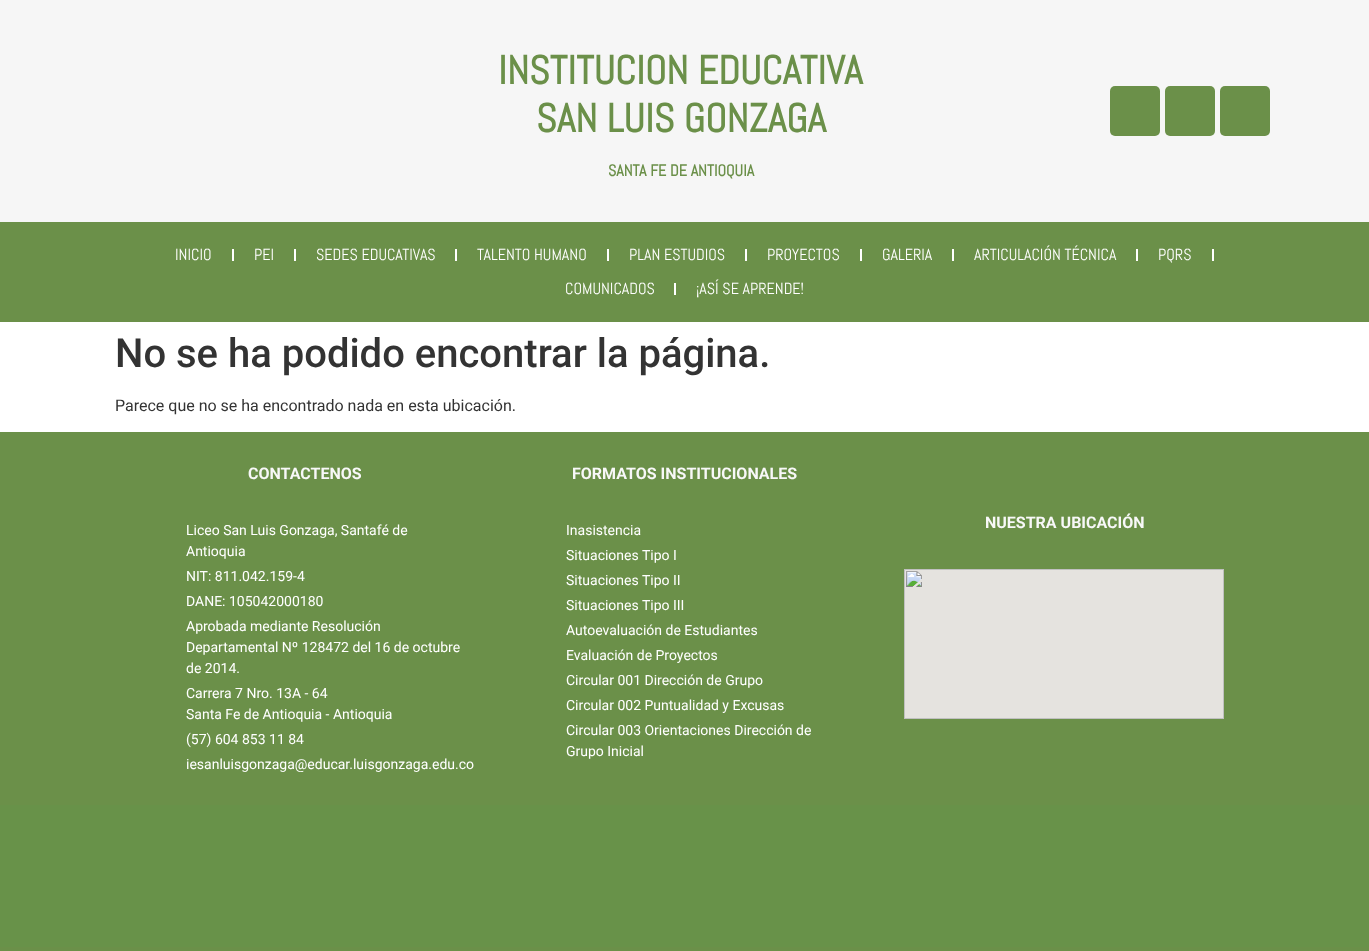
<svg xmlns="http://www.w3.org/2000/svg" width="1369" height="951">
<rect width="100%" height="100%" fill="#fff"/>
<rect width="1369" height="222" fill="#f6f6f6"/>
<text x="498" y="84" style="font-family:Abel;font-size:40px;font-weight:bold;fill:#6b9049">INSTITUCION EDUCATIVA</text>
<text x="536" y="132" style="font-family:Abel;font-size:40px;font-weight:bold;fill:#6b9049">SAN LUIS GONZAGA</text>
<text x="608" y="176" style="font-family:Abel;font-size:16px;font-weight:bold;fill:#6b9049">SANTA FE DE ANTIOQUIA</text>
<rect x="1110" y="86" width="50" height="50" rx="5" fill="#6b9049"/>
<rect x="1165" y="86" width="50" height="50" rx="5" fill="#6b9049"/>
<rect x="1220" y="86" width="50" height="50" rx="5" fill="#6b9049"/>
<rect y="222" width="1369" height="100" fill="#6b9049"/>
<text x="175" y="260" style="font-family:Abel;font-size:16px;fill:#fff">INICIO</text>
<rect x="232" y="249" width="2" height="12" fill="#fff"/>
<text x="254" y="260" style="font-family:Abel;font-size:16px;fill:#fff">PEI</text>
<rect x="294" y="249" width="2" height="12" fill="#fff"/>
<text x="316" y="260" style="font-family:Abel;font-size:16px;fill:#fff">SEDES EDUCATIVAS</text>
<rect x="455" y="249" width="2" height="12" fill="#fff"/>
<text x="477" y="260" style="font-family:Abel;font-size:16px;fill:#fff">TALENTO HUMANO</text>
<rect x="607" y="249" width="2" height="12" fill="#fff"/>
<text x="629" y="260" style="font-family:Abel;font-size:16px;fill:#fff">PLAN ESTUDIOS</text>
<rect x="745" y="249" width="2" height="12" fill="#fff"/>
<text x="767" y="260" style="font-family:Abel;font-size:16px;fill:#fff">PROYECTOS</text>
<rect x="860" y="249" width="2" height="12" fill="#fff"/>
<text x="882" y="260" style="font-family:Abel;font-size:16px;fill:#fff">GALERIA</text>
<rect x="952" y="249" width="2" height="12" fill="#fff"/>
<text x="974" y="260" style="font-family:Abel;font-size:16px;fill:#fff">ARTICULACIÓN TÉCNICA</text>
<rect x="1136" y="249" width="2" height="12" fill="#fff"/>
<text x="1158" y="260" style="font-family:Abel;font-size:16px;fill:#fff">PQRS</text>
<rect x="1212" y="249" width="2" height="12" fill="#fff"/>
<text x="565" y="294" style="font-family:Abel;font-size:16px;fill:#fff">COMUNICADOS</text>
<rect x="674" y="283" width="2" height="12" fill="#fff"/>
<text x="696" y="294" style="font-family:Abel;font-size:16px;fill:#fff">¡ASÍ SE APRENDE!</text>
<text x="115" y="367" style="font-family:Roboto;font-size:40px;font-weight:500;fill:#333">No se ha podido encontrar la página.</text>
<text x="115" y="411" style="font-family:Roboto;font-size:16px;fill:#333">Parece que no se ha encontrado nada en esta ubicación.</text>
<rect y="432" width="1369" height="373" fill="#6b9049"/>
<text x="248" y="479" style="font-family:Roboto;font-size:16px;font-weight:bold;fill:#f8f8f8">CONTACTENOS</text>
<text x="186" y="535" style="font-family:Roboto;font-size:14px;fill:#fff">Liceo San Luis Gonzaga, Santafé de</text>
<text x="186" y="556" style="font-family:Roboto;font-size:14px;fill:#fff">Antioquia</text>
<text x="186" y="581" style="font-family:Roboto;font-size:14px;fill:#fff">NIT: 811.042.159-4</text>
<text x="186" y="606" style="font-family:Roboto;font-size:14px;fill:#fff">DANE: 105042000180</text>
<text x="186" y="631" style="font-family:Roboto;font-size:14px;fill:#fff">Aprobada mediante Resolución</text>
<text x="186" y="652" style="font-family:Roboto;font-size:14px;fill:#fff">Departamental Nº 128472 del 16 de octubre</text>
<text x="186" y="673" style="font-family:Roboto;font-size:14px;fill:#fff">de 2014.</text>
<text x="186" y="698" style="font-family:Roboto;font-size:14px;fill:#fff">Carrera 7 Nro. 13A - 64</text>
<text x="186" y="719" style="font-family:Roboto;font-size:14px;fill:#fff">Santa Fe de Antioquia - Antioquia</text>
<text x="186" y="744" style="font-family:Roboto;font-size:14px;fill:#fff">(57) 604 853 11 84</text>
<text x="186" y="769" style="font-family:Roboto;font-size:14px;fill:#fff">iesanluisgonzaga@educar.luisgonzaga.edu.co</text>
<text x="572" y="479" style="font-family:Roboto;font-size:16px;font-weight:bold;fill:#f8f8f8">FORMATOS INSTITUCIONALES</text>
<text x="566" y="535" style="font-family:Roboto;font-size:14px;fill:#fff">Inasistencia</text>
<text x="566" y="560" style="font-family:Roboto;font-size:14px;fill:#fff">Situaciones Tipo I</text>
<text x="566" y="585" style="font-family:Roboto;font-size:14px;fill:#fff">Situaciones Tipo II</text>
<text x="566" y="610" style="font-family:Roboto;font-size:14px;fill:#fff">Situaciones Tipo III</text>
<text x="566" y="635" style="font-family:Roboto;font-size:14px;fill:#fff">Autoevaluación de Estudiantes</text>
<text x="566" y="660" style="font-family:Roboto;font-size:14px;fill:#fff">Evaluación de Proyectos</text>
<text x="566" y="685" style="font-family:Roboto;font-size:14px;fill:#fff">Circular 001 Dirección de Grupo</text>
<text x="566" y="710" style="font-family:Roboto;font-size:14px;fill:#fff">Circular 002 Puntualidad y Excusas</text>
<text x="566" y="735" style="font-family:Roboto;font-size:14px;fill:#fff">Circular 003 Orientaciones Dirección de</text>
<text x="566" y="756" style="font-family:Roboto;font-size:14px;fill:#fff">Grupo Inicial</text>
<text x="985" y="528" style="font-family:Roboto;font-size:16px;font-weight:bold;fill:#f8f8f8">NUESTRA UBICACIÓN</text>
<image x="904" y="569" width="320" height="150" href="media/1.png"/>
<rect y="805" width="1369" height="142" fill="#689249"/>
<rect y="947" width="1369" height="4" fill="#6b9049"/>
</svg>
